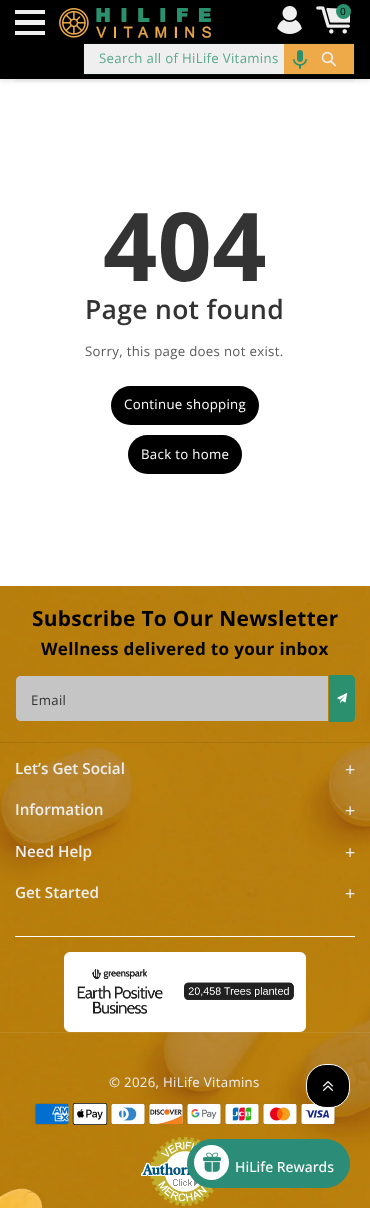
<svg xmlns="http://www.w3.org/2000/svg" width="370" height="1208">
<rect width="100%" height="100%" fill="#fff"/>
<rect x="15" y="79" width="340" height="3" fill="#f7f7f7"/>
<rect y="2" width="370" height="79" fill="#0000001a" filter="blur(2.5px)"/>
<rect width="370" height="79" fill="#000"/>
<image x="277" y="6" width="25" height="28" href="media/1.png"/>
<image x="316" y="6" width="34" height="28" href="media/2.png"/>
<circle cx="343.5" cy="11.5" r="7.5" fill="#2b906d"/>
<text x="340" y="15" style="font-family:Open Sans;font-size:10px;letter-spacing:0.3px;fill:#000">0</text>
<rect x="84" y="44" width="200" height="30" fill="#efefef"/>
<rect x="284" y="44" width="70" height="30" fill="#eeaa49"/>
<image x="322" y="51" width="14" height="16" href="media/3.png"/>
<rect x="83.5" y="43.5" width="271" height="31" fill="none" stroke="#040e0b"/>
<text x="99" y="63" style="font-family:Open Sans;font-size:13.25px;letter-spacing:0.3px;fill:#5ca88e">Search all of HiLife Vitamins</text>
<image x="293" y="50" width="14" height="19" href="media/4.png"/>
<rect x="15" y="10" width="30" height="4" fill="#efefef"/>
<rect x="15" y="20" width="30" height="5" fill="#efefef"/>
<rect x="15" y="31" width="30" height="4" fill="#efefef"/>
<image x="59" y="8" width="153" height="30" href="media/5.png"/>
<text x="103" y="281" style="font-family:Open Sans;font-size:95px;font-weight:bold;letter-spacing:0.3px;fill:#333">404</text>
<text x="85" y="319" style="font-family:Open Sans;font-size:26.5px;font-weight:600;letter-spacing:0.3px;fill:#333">Page not found</text>
<text x="85" y="356" style="font-family:Open Sans;font-size:13.25px;letter-spacing:0.3px;fill:#5c5c5c">Sorry, this page does not exist.</text>
<rect x="111" y="386" width="148" height="39" rx="19.5" fill="#000"/>
<text x="124" y="409" style="font-family:Open Sans;font-size:13.25px;letter-spacing:0.3px;fill:#fff">Continue shopping</text>
<rect x="128" y="435" width="114" height="39" rx="19.5" fill="#000"/>
<text x="141" y="459" style="font-family:Open Sans;font-size:13.25px;letter-spacing:0.3px;fill:#fff">Back to home</text>
<image x="0" y="586" width="370" height="622" href="media/6.png"/>
<rect y="742" width="370" height="1" fill="#00000017"/>
<text x="32" y="626" style="font-family:Open Sans;font-size:20.9px;font-weight:bold;letter-spacing:0.3px;fill:#000">Subscribe To Our Newsletter</text>
<text x="41" y="655" style="font-family:Open Sans;font-size:17.1px;font-weight:bold;letter-spacing:0.3px;fill:#000">Wellness delivered to your inbox</text>
<path d="M21 676h307v45h-307c-3 0-5-2-5-5v-35c0-3 2-5 5-5z" fill="#c5c5c5"/>
<path d="M329 675h21c3 0 5 2 5 5v37c0 3-2 5-5 5h-21z" fill="#2b906d"/>
<image x="337" y="692" width="11" height="12" href="media/7.png"/>
<text x="31" y="705" style="font-family:Open Sans;font-size:13.25px;letter-spacing:0.3px;fill:#333">Email</text>
<text x="15" y="774" style="font-family:Open Sans;font-size:15.25px;font-weight:600;fill:#efefef">Let’s Get Social</text>
<text x="345" y="776" style="font-family:Open Sans;font-size:18px;fill:#efefef">+</text>
<text x="15" y="815" style="font-family:Open Sans;font-size:15.25px;font-weight:600;fill:#efefef">Information</text>
<text x="345" y="817" style="font-family:Open Sans;font-size:18px;fill:#efefef">+</text>
<text x="15" y="857" style="font-family:Open Sans;font-size:15.25px;font-weight:600;fill:#efefef">Need Help</text>
<text x="345" y="859" style="font-family:Open Sans;font-size:18px;fill:#efefef">+</text>
<text x="15" y="898" style="font-family:Open Sans;font-size:15.25px;font-weight:600;fill:#efefef">Get Started</text>
<text x="345" y="900" style="font-family:Open Sans;font-size:18px;fill:#efefef">+</text>
<rect x="15" y="936" width="340" height="1" fill="#fff"/>
<image x="64" y="952" width="242" height="80" href="media/8.png"/>
<rect y="1032" width="370" height="1" fill="#efefef1a"/>
<text x="109" y="1087" style="font-family:Open Sans;font-size:13.25px;letter-spacing:0.3px;fill:#efefef">© 2026, HiLife Vitamins</text>
<image x="34" y="1103" width="36" height="22" href="media/9.png"/>
<image x="72" y="1103" width="36" height="22" href="media/10.png"/>
<image x="110" y="1103" width="36" height="22" href="media/11.png"/>
<image x="148" y="1103" width="36" height="22" href="media/12.png"/>
<image x="186" y="1103" width="36" height="22" href="media/13.png"/>
<image x="224" y="1103" width="36" height="22" href="media/14.png"/>
<image x="262" y="1103" width="36" height="22" href="media/15.png"/>
<image x="300" y="1103" width="36" height="22" href="media/16.png"/>
<rect x="306.5" y="1064.5" width="43" height="43" rx="19.5" fill="#000" stroke="#fff"/>
<image x="323" y="1081" width="10" height="10" href="media/17.png"/>
<image x="141" y="1137" width="73" height="69" href="media/18.png"/>
<rect x="187.5" y="1139.5" width="162" height="48" rx="24" fill="#2b8d77" stroke="#2b8d77"/>
<circle cx="211.5" cy="1162.5" r="17.5" fill="#fff"/>
<image x="203" y="1152" width="18" height="20" href="media/19.png"/>
<text x="235" y="1172" style="font-family:Open Sans;font-size:14px;font-weight:500;fill:#fff">HiLife Rewards</text>
</svg>
